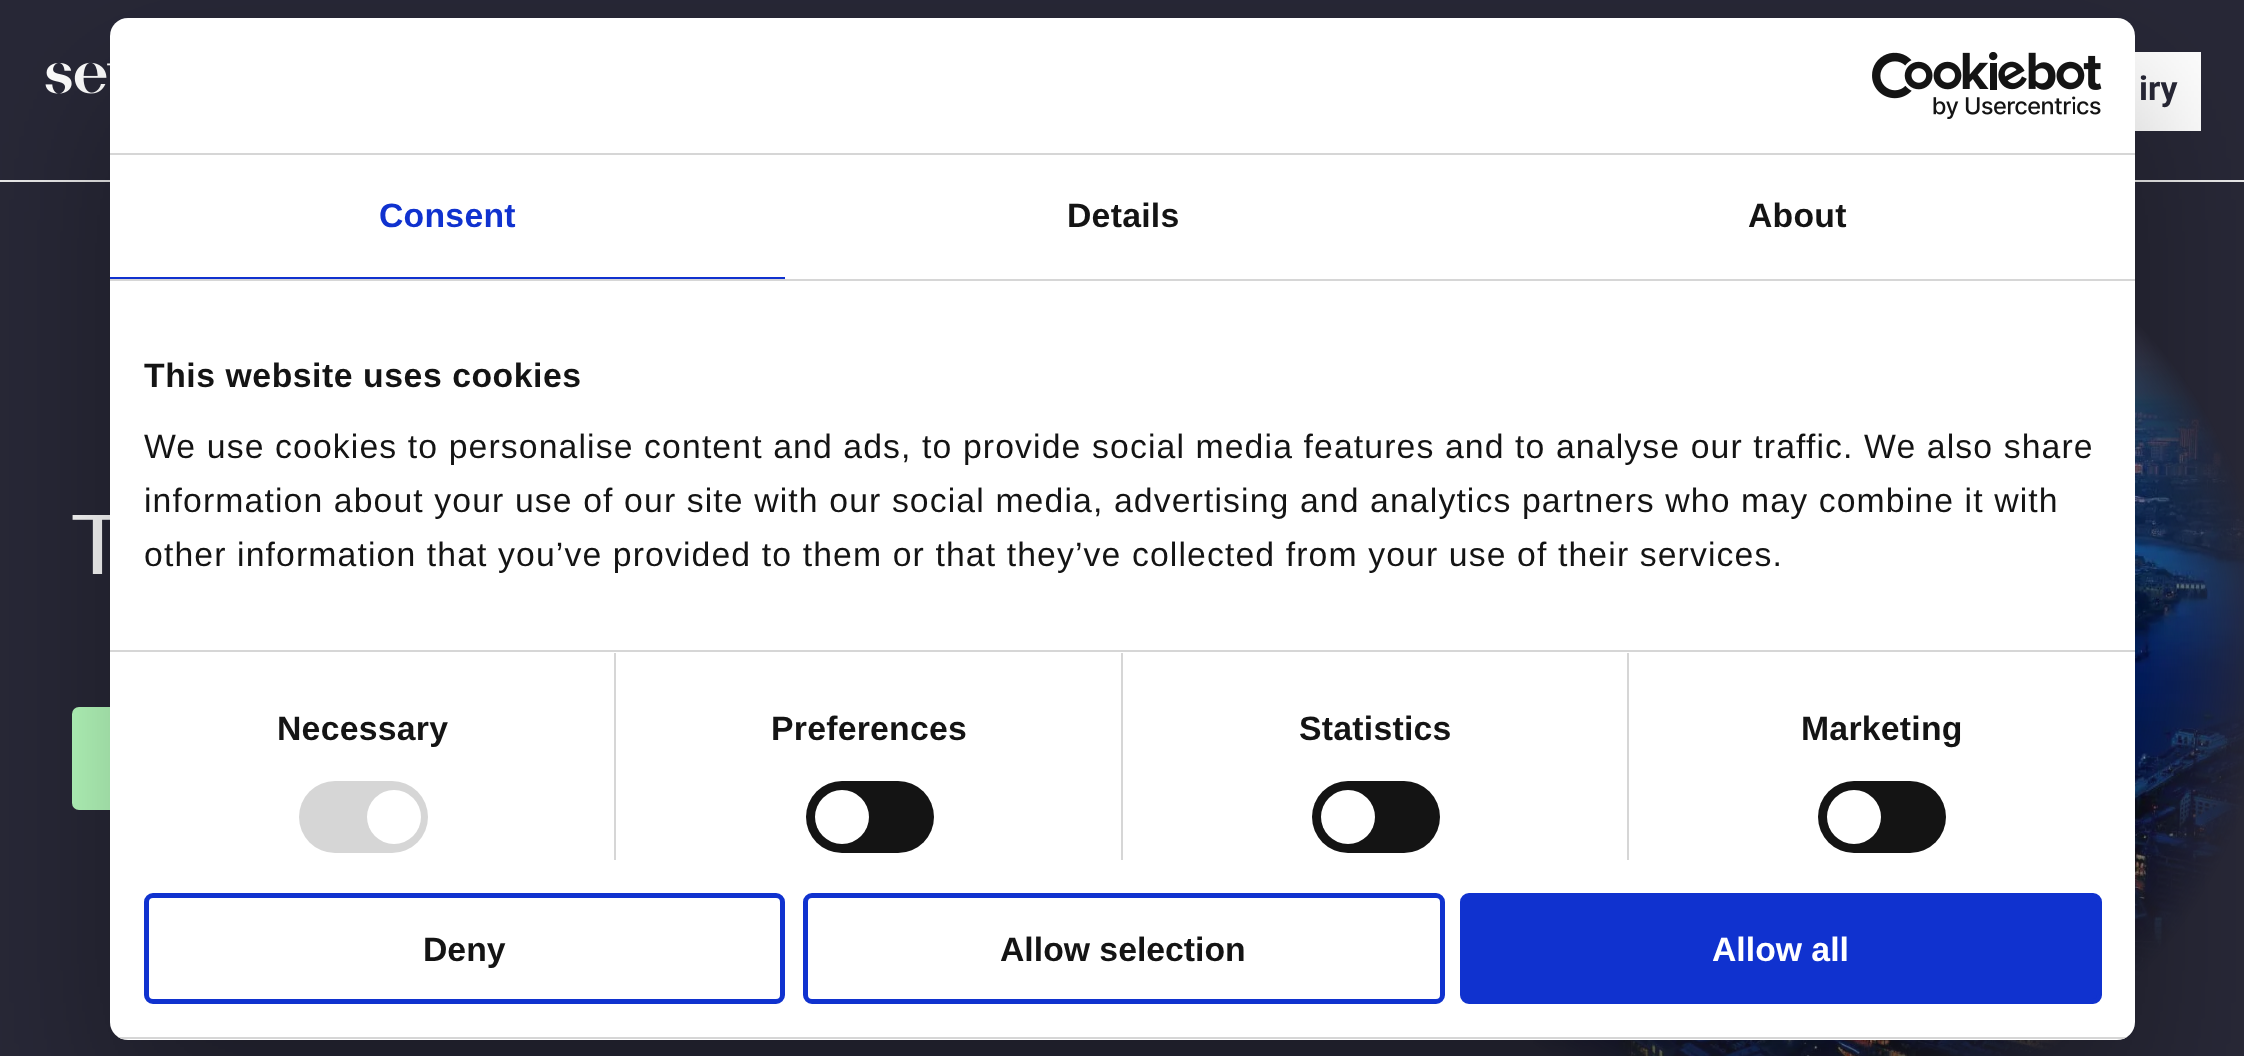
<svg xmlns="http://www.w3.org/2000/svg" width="2244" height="1056">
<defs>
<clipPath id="clip1"><rect x="110" y="18" width="2025" height="1022" rx="18"/></clipPath>
</defs>
<rect width="100%" height="100%" fill="#282837"/>
<rect y="180" width="2244" height="2" fill="#eaeaea"/>
<image x="45" y="62" width="65" height="32" href="media/1.png"/>
<rect x="2135" y="52" width="66" height="79" fill="#fff"/>
<text x="2139" y="100" style="font-family:Roboto;font-size:33.75px;font-weight:bold;fill:#282837">iry</text>
<text x="72" y="574" style="font-family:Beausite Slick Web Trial;font-size:81px;font-weight:bold;fill:#fff">T</text>
<rect x="72" y="707" width="401" height="103" rx="7" fill="#b9ffc0"/>
<image x="1533" y="324" width="711" height="732" href="media/2.png"/>
<rect x="110" y="90" width="2025" height="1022" rx="18" fill="#0000004d" filter="blur(76.5px)"/>
<rect x="110" y="18" width="2025" height="1022" rx="18" fill="#fff"/>
<rect x="110" y="153" width="2025" height="2" fill="#d6d6d6"/>
<image x="1872" y="52" width="230" height="67" href="media/3.png"/>
<rect x="110" y="279" width="2025" height="2" fill="#d6d6d6"/>
<rect x="110" y="277" width="675" height="2" fill="#1032cf"/>
<text x="379" y="227" style="font-family:Liberation Sans;font-size:33.75px;font-weight:bold;letter-spacing:0.25px;fill:#1032cf">Consent</text>
<text x="1067" y="227" style="font-family:Liberation Sans;font-size:33.75px;font-weight:bold;letter-spacing:0.25px;fill:#141414">Details</text>
<text x="1748" y="227" style="font-family:Liberation Sans;font-size:33.75px;font-weight:bold;letter-spacing:0.25px;fill:#141414">About</text>
<rect x="110" y="650" width="2025" height="2" fill="#d6d6d6"/>
<text x="144" y="387" style="font-family:Liberation Sans;font-size:33.75px;font-weight:bold;letter-spacing:0.55px;fill:#141414">This website uses cookies</text>
<text x="144" y="458" style="font-family:Liberation Sans;font-size:33.75px;letter-spacing:1.12px;fill:#141414">We use cookies to personalise content and ads, to provide social media features and to analyse our traffic. We also share</text>
<text x="144" y="512" style="font-family:Liberation Sans;font-size:33.75px;letter-spacing:1.12px;fill:#141414">information about your use of our site with our social media, advertising and analytics partners who may combine it with</text>
<text x="144" y="566" style="font-family:Liberation Sans;font-size:33.75px;letter-spacing:1.12px;fill:#141414">other information that you’ve provided to them or that they’ve collected from your use of their services.</text>
<rect x="614" y="653" width="2" height="207" fill="#d6d6d6"/>
<text x="277" y="740" style="font-family:Liberation Sans;font-size:33.75px;font-weight:bold;letter-spacing:0.25px;fill:#141414">Necessary</text>
<rect x="299" y="781" width="129" height="72" rx="36" fill="#d6d6d6"/>
<circle cx="394" cy="817" r="27" fill="#fff"/>
<rect x="1121" y="653" width="2" height="207" fill="#d6d6d6"/>
<text x="771" y="740" style="font-family:Liberation Sans;font-size:33.75px;font-weight:bold;letter-spacing:0.25px;fill:#141414">Preferences</text>
<rect x="806" y="781" width="128" height="72" rx="36" fill="#141414"/>
<circle cx="842" cy="817" r="27" fill="#fff"/>
<rect x="1627" y="653" width="2" height="207" fill="#d6d6d6"/>
<text x="1299" y="740" style="font-family:Liberation Sans;font-size:33.75px;font-weight:bold;letter-spacing:0.25px;fill:#141414">Statistics</text>
<rect x="1312" y="781" width="128" height="72" rx="36" fill="#141414"/>
<circle cx="1348" cy="817" r="27" fill="#fff"/>
<text x="1801" y="740" style="font-family:Liberation Sans;font-size:33.75px;font-weight:bold;letter-spacing:0.25px;fill:#141414">Marketing</text>
<rect x="1818" y="781" width="128" height="72" rx="36" fill="#141414"/>
<circle cx="1854" cy="817" r="27" fill="#fff"/>
<g clip-path="url(#clip1)">
<rect x="110" y="1037" width="2025" height="2" fill="#d6d6d6"/>
</g>
<rect x="146.5" y="895.5" width="636" height="106" rx="6.5" fill="none" stroke="#1032cf" stroke-width="5"/>
<text x="423" y="961" style="font-family:Liberation Sans;font-size:33.75px;font-weight:bold;fill:#141414">Deny</text>
<rect x="805.5" y="895.5" width="637" height="106" rx="6.5" fill="none" stroke="#1032cf" stroke-width="5"/>
<text x="1000" y="961" style="font-family:Liberation Sans;font-size:33.75px;font-weight:bold;fill:#141414">Allow selection</text>
<rect x="1462.5" y="895.5" width="637" height="106" rx="6.5" fill="#1032cf" stroke="#1032cf" stroke-width="5"/>
<text x="1712" y="961" style="font-family:Liberation Sans;font-size:33.75px;font-weight:bold;fill:#fff">Allow all</text>
</svg>
